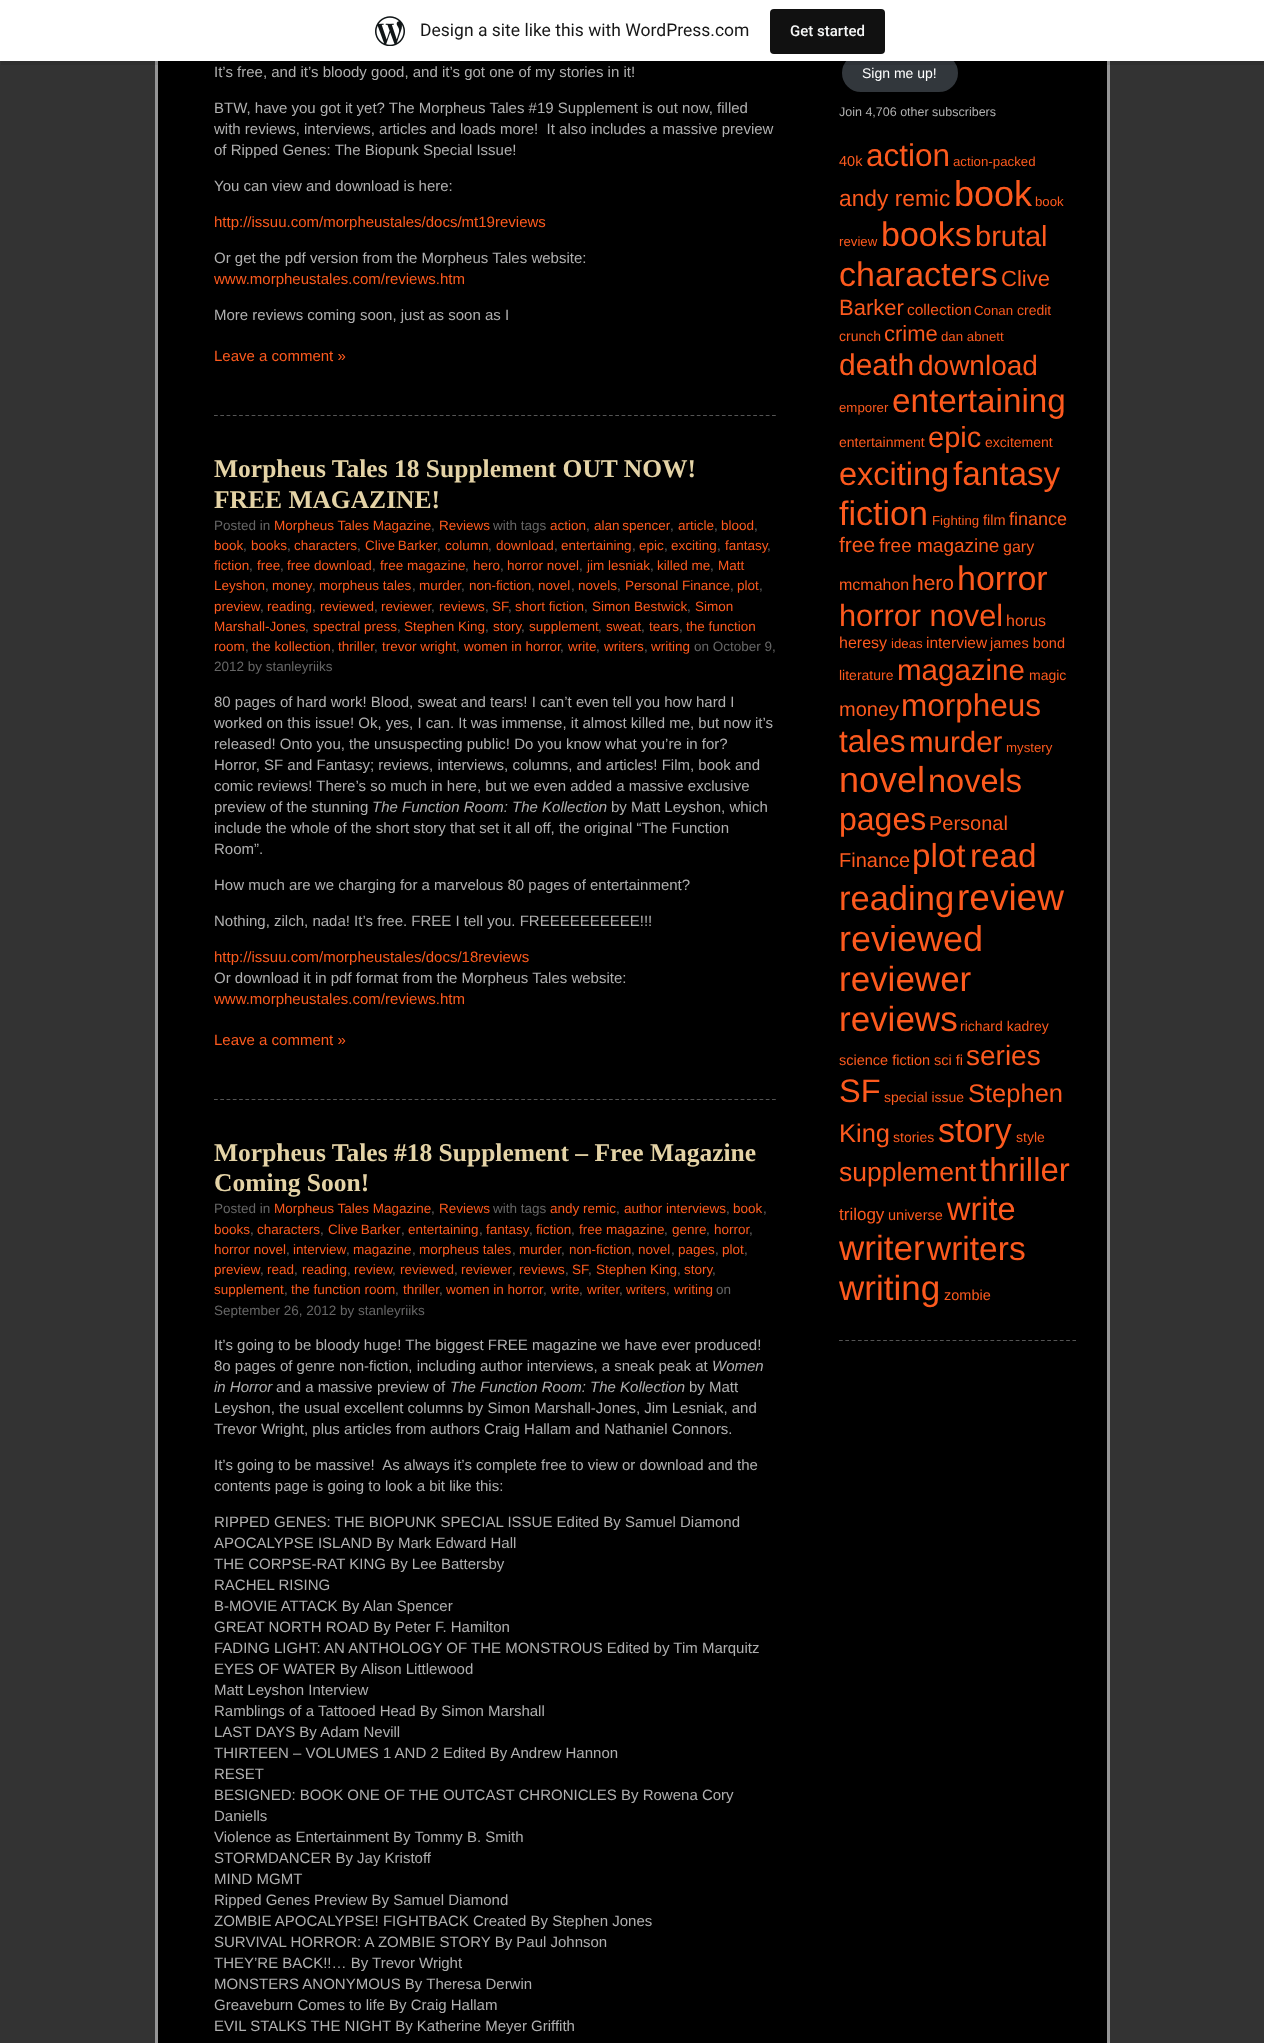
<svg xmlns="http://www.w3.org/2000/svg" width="1264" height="2043">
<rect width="100%" height="100%" fill="#333"/>
<rect x="158" y="61" width="949" height="1982" fill="#000"/>
<rect x="156.5" y="-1.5" width="952" height="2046" fill="none" stroke="#959596" stroke-width="3"/>
<rect x="840.5" y="52.5" width="119" height="41" rx="20.5" fill="#32373c" stroke="#000" stroke-width="3"/>
<path d="M1 61v4h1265v-61h-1v57z" fill="#00000014"/>
<rect width="1264" height="61" fill="#fff"/>
<image x="375" y="16" width="30" height="30" href="media/1.png"/>
<text x="420" y="36" style="font-family:Roboto;font-size:17.5px;fill:#171717">Design a site like this with WordPress.com</text>
<rect x="770" y="9" width="115" height="45" rx="4" fill="#111"/>
<text x="790" y="36" style="font-family:Roboto;font-size:15px;font-weight:500;fill:#f6f7f7">Get started</text>
<text x="214" y="77" style="font-family:Liberation Sans;font-size:15px;fill:#b0b0b0">It’s free, and it’s bloody good, and it’s got one of my stories in it!</text>
<text x="214" y="113" style="font-family:Liberation Sans;font-size:15px;fill:#b0b0b0">BTW, have you got it yet? The Morpheus Tales #19 Supplement is out now, filled</text>
<text x="214" y="134" style="font-family:Liberation Sans;font-size:15px;fill:#b0b0b0" xml:space="preserve">with reviews, interviews, articles and loads more!  It also includes a massive preview</text>
<text x="214" y="155" style="font-family:Liberation Sans;font-size:15px;fill:#b0b0b0">of Ripped Genes: The Biopunk Special Issue!</text>
<text x="214" y="191" style="font-family:Liberation Sans;font-size:15px;fill:#b0b0b0">You can view and download is here:</text>
<text x="214" y="227" style="font-family:Liberation Sans;font-size:15px;fill:#fd5a1e">http://issuu.com/morpheustales/docs/mt19reviews</text>
<text x="214" y="263" style="font-family:Liberation Sans;font-size:15px;fill:#b0b0b0">Or get the pdf version from the Morpheus Tales website:</text>
<text x="214" y="284" style="font-family:Liberation Sans;font-size:15px;fill:#fd5a1e">www.morpheustales.com/reviews.htm</text>
<text x="214" y="320" style="font-family:Liberation Sans;font-size:15px;fill:#b0b0b0">More reviews coming soon, just as soon as I</text>
<text x="214" y="361" style="font-family:Liberation Sans;font-size:15px;fill:#fd5a1e">Leave a comment »</text>
<path d="M214 415.5h562" fill="none" stroke="#555" stroke-width="1.2" stroke-dasharray="3.75 2.52"/>
<text x="214" y="477" style="font-family:Liberation Serif;font-size:25.5px;font-weight:bold;fill:#e4d3a6">Morpheus Tales 18 Supplement OUT NOW!</text>
<text x="214" y="508" style="font-family:Liberation Serif;font-size:25.5px;font-weight:bold;fill:#e4d3a6">FREE MAGAZINE!</text>
<text x="214" y="530" style="font-family:Liberation Sans;font-size:13.5px;fill:#666">Posted in</text>
<text x="274" y="530" style="font-family:Liberation Sans;font-size:13.5px;fill:#fd5a1e">Morpheus Tales Magazine</text>
<text x="431" y="530" style="font-family:Liberation Sans;font-size:13.5px;fill:#666">,</text>
<text x="439" y="530" style="font-family:Liberation Sans;font-size:13.5px;fill:#fd5a1e">Reviews</text>
<text x="493" y="530" style="font-family:Liberation Sans;font-size:13.5px;fill:#666">with tags</text>
<text x="550" y="530" style="font-family:Liberation Sans;font-size:13.5px;fill:#fd5a1e">action</text>
<text x="586" y="530" style="font-family:Liberation Sans;font-size:13.5px;fill:#666">,</text>
<text x="594" y="530" word-spacing="-1" style="font-family:Liberation Sans;font-size:13.5px;fill:#fd5a1e">alan spencer</text>
<text x="670" y="530" style="font-family:Liberation Sans;font-size:13.5px;fill:#666">,</text>
<text x="678" y="530" style="font-family:Liberation Sans;font-size:13.5px;fill:#fd5a1e">article</text>
<text x="714" y="530" style="font-family:Liberation Sans;font-size:13.5px;fill:#666">,</text>
<text x="721" y="530" style="font-family:Liberation Sans;font-size:13.5px;fill:#fd5a1e">blood</text>
<text x="754" y="530" style="font-family:Liberation Sans;font-size:13.5px;fill:#666">,</text>
<text x="214" y="550" style="font-family:Liberation Sans;font-size:13.5px;fill:#fd5a1e">book</text>
<text x="243" y="550" style="font-family:Liberation Sans;font-size:13.5px;fill:#666">,</text>
<text x="251" y="550" style="font-family:Liberation Sans;font-size:13.5px;fill:#fd5a1e">books</text>
<text x="287" y="550" style="font-family:Liberation Sans;font-size:13.5px;fill:#666">,</text>
<text x="294" y="550" style="font-family:Liberation Sans;font-size:13.5px;fill:#fd5a1e">characters</text>
<text x="357" y="550" style="font-family:Liberation Sans;font-size:13.5px;fill:#666">,</text>
<text x="365" y="550" word-spacing="-1" style="font-family:Liberation Sans;font-size:13.5px;fill:#fd5a1e">Clive Barker</text>
<text x="437" y="550" style="font-family:Liberation Sans;font-size:13.5px;fill:#666">,</text>
<text x="445" y="550" style="font-family:Liberation Sans;font-size:13.5px;fill:#fd5a1e">column</text>
<text x="488" y="550" style="font-family:Liberation Sans;font-size:13.5px;fill:#666">,</text>
<text x="496" y="550" style="font-family:Liberation Sans;font-size:13.5px;fill:#fd5a1e">download</text>
<text x="554" y="550" style="font-family:Liberation Sans;font-size:13.5px;fill:#666">,</text>
<text x="561" y="550" style="font-family:Liberation Sans;font-size:13.5px;fill:#fd5a1e">entertaining</text>
<text x="632" y="550" style="font-family:Liberation Sans;font-size:13.5px;fill:#666">,</text>
<text x="639" y="550" style="font-family:Liberation Sans;font-size:13.5px;fill:#fd5a1e">epic</text>
<text x="664" y="550" style="font-family:Liberation Sans;font-size:13.5px;fill:#666">,</text>
<text x="671" y="550" style="font-family:Liberation Sans;font-size:13.5px;fill:#fd5a1e">exciting</text>
<text x="717" y="550" style="font-family:Liberation Sans;font-size:13.5px;fill:#666">,</text>
<text x="725" y="550" style="font-family:Liberation Sans;font-size:13.5px;fill:#fd5a1e">fantasy</text>
<text x="767" y="550" style="font-family:Liberation Sans;font-size:13.5px;fill:#666">,</text>
<text x="214" y="570" style="font-family:Liberation Sans;font-size:13.5px;fill:#fd5a1e">fiction</text>
<text x="249" y="570" style="font-family:Liberation Sans;font-size:13.5px;fill:#666">,</text>
<text x="257" y="570" style="font-family:Liberation Sans;font-size:13.5px;fill:#fd5a1e">free</text>
<text x="280" y="570" style="font-family:Liberation Sans;font-size:13.5px;fill:#666">,</text>
<text x="287" y="570" style="font-family:Liberation Sans;font-size:13.5px;fill:#fd5a1e">free download</text>
<text x="372" y="570" style="font-family:Liberation Sans;font-size:13.5px;fill:#666">,</text>
<text x="380" y="570" style="font-family:Liberation Sans;font-size:13.5px;fill:#fd5a1e">free magazine</text>
<text x="465" y="570" style="font-family:Liberation Sans;font-size:13.5px;fill:#666">,</text>
<text x="473" y="570" style="font-family:Liberation Sans;font-size:13.5px;fill:#fd5a1e">hero</text>
<text x="500" y="570" style="font-family:Liberation Sans;font-size:13.5px;fill:#666">,</text>
<text x="507" y="570" style="font-family:Liberation Sans;font-size:13.5px;fill:#fd5a1e">horror novel</text>
<text x="579" y="570" style="font-family:Liberation Sans;font-size:13.5px;fill:#666">,</text>
<text x="587" y="570" style="font-family:Liberation Sans;font-size:13.5px;fill:#fd5a1e">jim lesniak</text>
<text x="650" y="570" style="font-family:Liberation Sans;font-size:13.5px;fill:#666">,</text>
<text x="657" y="570" style="font-family:Liberation Sans;font-size:13.5px;fill:#fd5a1e">killed me</text>
<text x="710" y="570" style="font-family:Liberation Sans;font-size:13.5px;fill:#666">,</text>
<text x="718" y="570" style="font-family:Liberation Sans;font-size:13.5px;fill:#fd5a1e">Matt</text>
<text x="214" y="590" style="font-family:Liberation Sans;font-size:13.5px;fill:#fd5a1e">Leyshon</text>
<text x="265" y="590" style="font-family:Liberation Sans;font-size:13.5px;fill:#666">,</text>
<text x="272" y="590" style="font-family:Liberation Sans;font-size:13.5px;fill:#fd5a1e">money</text>
<text x="312" y="590" style="font-family:Liberation Sans;font-size:13.5px;fill:#666">,</text>
<text x="319" y="590" style="font-family:Liberation Sans;font-size:13.5px;fill:#fd5a1e">morpheus tales</text>
<text x="412" y="590" style="font-family:Liberation Sans;font-size:13.5px;fill:#666">,</text>
<text x="419" y="590" style="font-family:Liberation Sans;font-size:13.5px;fill:#fd5a1e">murder</text>
<text x="461" y="590" style="font-family:Liberation Sans;font-size:13.5px;fill:#666">,</text>
<text x="469" y="590" style="font-family:Liberation Sans;font-size:13.5px;fill:#fd5a1e">non-fiction</text>
<text x="531" y="590" style="font-family:Liberation Sans;font-size:13.5px;fill:#666">,</text>
<text x="538" y="590" style="font-family:Liberation Sans;font-size:13.5px;fill:#fd5a1e">novel</text>
<text x="571" y="590" style="font-family:Liberation Sans;font-size:13.5px;fill:#666">,</text>
<text x="578" y="590" style="font-family:Liberation Sans;font-size:13.5px;fill:#fd5a1e">novels</text>
<text x="617" y="590" style="font-family:Liberation Sans;font-size:13.5px;fill:#666">,</text>
<text x="625" y="590" style="font-family:Liberation Sans;font-size:13.5px;fill:#fd5a1e">Personal Finance</text>
<text x="730" y="590" style="font-family:Liberation Sans;font-size:13.5px;fill:#666">,</text>
<text x="737" y="590" style="font-family:Liberation Sans;font-size:13.5px;fill:#fd5a1e">plot</text>
<text x="759" y="590" style="font-family:Liberation Sans;font-size:13.5px;fill:#666">,</text>
<text x="214" y="611" style="font-family:Liberation Sans;font-size:13.5px;fill:#fd5a1e">preview</text>
<text x="260" y="611" style="font-family:Liberation Sans;font-size:13.5px;fill:#666">,</text>
<text x="267" y="611" style="font-family:Liberation Sans;font-size:13.5px;fill:#fd5a1e">reading</text>
<text x="312" y="611" style="font-family:Liberation Sans;font-size:13.5px;fill:#666">,</text>
<text x="320" y="611" style="font-family:Liberation Sans;font-size:13.5px;fill:#fd5a1e">reviewed</text>
<text x="374" y="611" style="font-family:Liberation Sans;font-size:13.5px;fill:#666">,</text>
<text x="381" y="611" style="font-family:Liberation Sans;font-size:13.5px;fill:#fd5a1e">reviewer</text>
<text x="431" y="611" style="font-family:Liberation Sans;font-size:13.5px;fill:#666">,</text>
<text x="439" y="611" style="font-family:Liberation Sans;font-size:13.5px;fill:#fd5a1e">reviews</text>
<text x="485" y="611" style="font-family:Liberation Sans;font-size:13.5px;fill:#666">,</text>
<text x="492" y="611" style="font-family:Liberation Sans;font-size:13.5px;fill:#fd5a1e">SF</text>
<text x="508" y="611" style="font-family:Liberation Sans;font-size:13.5px;fill:#666">,</text>
<text x="515" y="611" style="font-family:Liberation Sans;font-size:13.5px;fill:#fd5a1e">short fiction</text>
<text x="584" y="611" style="font-family:Liberation Sans;font-size:13.5px;fill:#666">,</text>
<text x="592" y="611" style="font-family:Liberation Sans;font-size:13.5px;fill:#fd5a1e">Simon Bestwick</text>
<text x="687" y="611" style="font-family:Liberation Sans;font-size:13.5px;fill:#666">,</text>
<text x="695" y="611" style="font-family:Liberation Sans;font-size:13.5px;fill:#fd5a1e">Simon</text>
<text x="214" y="631" style="font-family:Liberation Sans;font-size:13.5px;fill:#fd5a1e">Marshall-Jones</text>
<text x="305" y="631" style="font-family:Liberation Sans;font-size:13.5px;fill:#666">,</text>
<text x="313" y="631" style="font-family:Liberation Sans;font-size:13.5px;fill:#fd5a1e">spectral press</text>
<text x="397" y="631" style="font-family:Liberation Sans;font-size:13.5px;fill:#666">,</text>
<text x="404" y="631" style="font-family:Liberation Sans;font-size:13.5px;fill:#fd5a1e">Stephen King</text>
<text x="485" y="631" style="font-family:Liberation Sans;font-size:13.5px;fill:#666">,</text>
<text x="493" y="631" style="font-family:Liberation Sans;font-size:13.5px;fill:#fd5a1e">story</text>
<text x="529" y="631" style="font-family:Liberation Sans;font-size:13.5px;fill:#fd5a1e">supplement</text>
<text x="606" y="631" style="font-family:Liberation Sans;font-size:13.5px;fill:#fd5a1e">sweat</text>
<text x="649" y="631" style="font-family:Liberation Sans;font-size:13.5px;fill:#fd5a1e">tears</text>
<text x="686" y="631" style="font-family:Liberation Sans;font-size:13.5px;fill:#fd5a1e">the function</text>
<text x="521" y="631" style="font-family:Liberation Sans;font-size:13.5px;fill:#666">,</text>
<text x="598" y="631" style="font-family:Liberation Sans;font-size:13.5px;fill:#666">,</text>
<text x="641" y="631" style="font-family:Liberation Sans;font-size:13.5px;fill:#666">,</text>
<text x="679" y="631" style="font-family:Liberation Sans;font-size:13.5px;fill:#666">,</text>
<text x="214" y="651" style="font-family:Liberation Sans;font-size:13.5px;fill:#fd5a1e">room</text>
<text x="245" y="651" style="font-family:Liberation Sans;font-size:13.5px;fill:#666">,</text>
<text x="252" y="651" style="font-family:Liberation Sans;font-size:13.5px;fill:#fd5a1e">the kollection</text>
<text x="331" y="651" style="font-family:Liberation Sans;font-size:13.5px;fill:#666">,</text>
<text x="338" y="651" style="font-family:Liberation Sans;font-size:13.5px;fill:#fd5a1e">thriller</text>
<text x="374" y="651" style="font-family:Liberation Sans;font-size:13.5px;fill:#666">,</text>
<text x="382" y="651" style="font-family:Liberation Sans;font-size:13.5px;fill:#fd5a1e">trevor wright</text>
<text x="456" y="651" style="font-family:Liberation Sans;font-size:13.5px;fill:#666">,</text>
<text x="464" y="651" style="font-family:Liberation Sans;font-size:13.5px;fill:#fd5a1e">women in horror</text>
<text x="560" y="651" style="font-family:Liberation Sans;font-size:13.5px;fill:#666">,</text>
<text x="568" y="651" style="font-family:Liberation Sans;font-size:13.5px;fill:#fd5a1e">write</text>
<text x="596" y="651" style="font-family:Liberation Sans;font-size:13.5px;fill:#666">,</text>
<text x="604" y="651" style="font-family:Liberation Sans;font-size:13.5px;fill:#fd5a1e">writers</text>
<text x="644" y="651" style="font-family:Liberation Sans;font-size:13.5px;fill:#666">,</text>
<text x="651" y="651" style="font-family:Liberation Sans;font-size:13.5px;fill:#fd5a1e">writing</text>
<text x="694" y="651" style="font-family:Liberation Sans;font-size:13.5px;fill:#666">on October 9,</text>
<text x="214" y="671" style="font-family:Liberation Sans;font-size:13.5px;fill:#666">2012 by stanleyriiks</text>
<text x="214" y="707" style="font-family:Liberation Sans;font-size:15px;fill:#b0b0b0">80 pages of hard work! Blood, sweat and tears! I can’t even tell you how hard I</text>
<text x="214" y="728" style="font-family:Liberation Sans;font-size:15px;fill:#b0b0b0">worked on this issue! Ok, yes, I can. It was immense, it almost killed me, but now it’s</text>
<text x="214" y="749" style="font-family:Liberation Sans;font-size:15px;fill:#b0b0b0">released! Onto you, the unsuspecting public! Do you know what you’re in for?</text>
<text x="214" y="770" style="font-family:Liberation Sans;font-size:15px;fill:#b0b0b0">Horror, SF and Fantasy; reviews, interviews, columns, and articles! Film, book and</text>
<text x="214" y="791" style="font-family:Liberation Sans;font-size:15px;fill:#b0b0b0">comic reviews! There’s so much in here, but we even added a massive exclusive</text>
<text x="214" y="812" style="font-family:Liberation Sans;font-size:15px;fill:#b0b0b0">preview of the stunning</text>
<text x="372" y="812" style="font-family:Liberation Sans;font-size:15px;font-style:italic;fill:#b0b0b0">The Function Room: The Kollection</text>
<text x="611" y="812" style="font-family:Liberation Sans;font-size:15px;fill:#b0b0b0">by Matt Leyshon, which</text>
<text x="214" y="833" style="font-family:Liberation Sans;font-size:15px;fill:#b0b0b0">include the whole of the short story that set it all off, the original “The Function</text>
<text x="214" y="854" style="font-family:Liberation Sans;font-size:15px;fill:#b0b0b0">Room”.</text>
<text x="214" y="890" style="font-family:Liberation Sans;font-size:15px;fill:#b0b0b0">How much are we charging for a marvelous 80 pages of entertainment?</text>
<text x="214" y="926" style="font-family:Liberation Sans;font-size:15px;fill:#b0b0b0">Nothing, zilch, nada! It’s free. FREE I tell you. FREEEEEEEEEE!!!</text>
<text x="214" y="962" style="font-family:Liberation Sans;font-size:15px;fill:#fd5a1e">http://issuu.com/morpheustales/docs/18reviews</text>
<text x="214" y="983" style="font-family:Liberation Sans;font-size:15px;fill:#b0b0b0">Or download it in pdf format from the Morpheus Tales website:</text>
<text x="214" y="1004" style="font-family:Liberation Sans;font-size:15px;fill:#fd5a1e">www.morpheustales.com/reviews.htm</text>
<text x="214" y="1045" style="font-family:Liberation Sans;font-size:15px;fill:#fd5a1e">Leave a comment »</text>
<path d="M214 1099.5h562" fill="none" stroke="#555" stroke-width="1.2" stroke-dasharray="3.75 2.52"/>
<text x="214" y="1161" style="font-family:Liberation Serif;font-size:25.5px;font-weight:bold;fill:#e4d3a6">Morpheus Tales #18 Supplement – Free Magazine</text>
<text x="214" y="1191" style="font-family:Liberation Serif;font-size:25.5px;font-weight:bold;fill:#e4d3a6">Coming Soon!</text>
<text x="214" y="1213" style="font-family:Liberation Sans;font-size:13.5px;fill:#666">Posted in</text>
<text x="274" y="1213" style="font-family:Liberation Sans;font-size:13.5px;fill:#fd5a1e">Morpheus Tales Magazine</text>
<text x="431" y="1213" style="font-family:Liberation Sans;font-size:13.5px;fill:#666">,</text>
<text x="439" y="1213" style="font-family:Liberation Sans;font-size:13.5px;fill:#fd5a1e">Reviews</text>
<text x="493" y="1213" style="font-family:Liberation Sans;font-size:13.5px;fill:#666">with tags</text>
<text x="550" y="1213" style="font-family:Liberation Sans;font-size:13.5px;fill:#fd5a1e">andy remic</text>
<text x="616" y="1213" style="font-family:Liberation Sans;font-size:13.5px;fill:#666">,</text>
<text x="624" y="1213" style="font-family:Liberation Sans;font-size:13.5px;fill:#fd5a1e">author interviews</text>
<text x="726" y="1213" style="font-family:Liberation Sans;font-size:13.5px;fill:#666">,</text>
<text x="733" y="1213" style="font-family:Liberation Sans;font-size:13.5px;fill:#fd5a1e">book</text>
<text x="763" y="1213" style="font-family:Liberation Sans;font-size:13.5px;fill:#666">,</text>
<text x="214" y="1234" style="font-family:Liberation Sans;font-size:13.5px;fill:#fd5a1e">books</text>
<text x="250" y="1234" style="font-family:Liberation Sans;font-size:13.5px;fill:#666">,</text>
<text x="257" y="1234" style="font-family:Liberation Sans;font-size:13.5px;fill:#fd5a1e">characters</text>
<text x="320" y="1234" style="font-family:Liberation Sans;font-size:13.5px;fill:#666">,</text>
<text x="328" y="1234" word-spacing="-1" style="font-family:Liberation Sans;font-size:13.5px;fill:#fd5a1e">Clive Barker</text>
<text x="401" y="1234" style="font-family:Liberation Sans;font-size:13.5px;fill:#666">,</text>
<text x="408" y="1234" style="font-family:Liberation Sans;font-size:13.5px;fill:#fd5a1e">entertaining</text>
<text x="479" y="1234" style="font-family:Liberation Sans;font-size:13.5px;fill:#666">,</text>
<text x="486" y="1234" style="font-family:Liberation Sans;font-size:13.5px;fill:#fd5a1e">fantasy</text>
<text x="529" y="1234" style="font-family:Liberation Sans;font-size:13.5px;fill:#666">,</text>
<text x="536" y="1234" style="font-family:Liberation Sans;font-size:13.5px;fill:#fd5a1e">fiction</text>
<text x="571" y="1234" style="font-family:Liberation Sans;font-size:13.5px;fill:#666">,</text>
<text x="579" y="1234" style="font-family:Liberation Sans;font-size:13.5px;fill:#fd5a1e">free magazine</text>
<text x="664" y="1234" style="font-family:Liberation Sans;font-size:13.5px;fill:#666">,</text>
<text x="672" y="1234" style="font-family:Liberation Sans;font-size:13.5px;fill:#fd5a1e">genre</text>
<text x="706" y="1234" style="font-family:Liberation Sans;font-size:13.5px;fill:#666">,</text>
<text x="714" y="1234" style="font-family:Liberation Sans;font-size:13.5px;fill:#fd5a1e">horror</text>
<text x="749" y="1234" style="font-family:Liberation Sans;font-size:13.5px;fill:#666">,</text>
<text x="214" y="1254" style="font-family:Liberation Sans;font-size:13.5px;fill:#fd5a1e">horror novel</text>
<text x="286" y="1254" style="font-family:Liberation Sans;font-size:13.5px;fill:#666">,</text>
<text x="293" y="1254" style="font-family:Liberation Sans;font-size:13.5px;fill:#fd5a1e">interview</text>
<text x="346" y="1254" style="font-family:Liberation Sans;font-size:13.5px;fill:#666">,</text>
<text x="353" y="1254" style="font-family:Liberation Sans;font-size:13.5px;fill:#fd5a1e">magazine</text>
<text x="412" y="1254" style="font-family:Liberation Sans;font-size:13.5px;fill:#666">,</text>
<text x="419" y="1254" style="font-family:Liberation Sans;font-size:13.5px;fill:#fd5a1e">morpheus tales</text>
<text x="512" y="1254" style="font-family:Liberation Sans;font-size:13.5px;fill:#666">,</text>
<text x="519" y="1254" style="font-family:Liberation Sans;font-size:13.5px;fill:#fd5a1e">murder</text>
<text x="561" y="1254" style="font-family:Liberation Sans;font-size:13.5px;fill:#666">,</text>
<text x="569" y="1254" style="font-family:Liberation Sans;font-size:13.5px;fill:#fd5a1e">non-fiction</text>
<text x="631" y="1254" style="font-family:Liberation Sans;font-size:13.5px;fill:#666">,</text>
<text x="638" y="1254" style="font-family:Liberation Sans;font-size:13.5px;fill:#fd5a1e">novel</text>
<text x="671" y="1254" style="font-family:Liberation Sans;font-size:13.5px;fill:#666">,</text>
<text x="678" y="1254" style="font-family:Liberation Sans;font-size:13.5px;fill:#fd5a1e">pages</text>
<text x="715" y="1254" style="font-family:Liberation Sans;font-size:13.5px;fill:#666">,</text>
<text x="722" y="1254" style="font-family:Liberation Sans;font-size:13.5px;fill:#fd5a1e">plot</text>
<text x="744" y="1254" style="font-family:Liberation Sans;font-size:13.5px;fill:#666">,</text>
<text x="214" y="1274" style="font-family:Liberation Sans;font-size:13.5px;fill:#fd5a1e">preview</text>
<text x="260" y="1274" style="font-family:Liberation Sans;font-size:13.5px;fill:#666">,</text>
<text x="267" y="1274" style="font-family:Liberation Sans;font-size:13.5px;fill:#fd5a1e">read</text>
<text x="294" y="1274" style="font-family:Liberation Sans;font-size:13.5px;fill:#666">,</text>
<text x="302" y="1274" style="font-family:Liberation Sans;font-size:13.5px;fill:#fd5a1e">reading</text>
<text x="347" y="1274" style="font-family:Liberation Sans;font-size:13.5px;fill:#666">,</text>
<text x="354" y="1274" style="font-family:Liberation Sans;font-size:13.5px;fill:#fd5a1e">review</text>
<text x="400" y="1274" style="font-family:Liberation Sans;font-size:13.5px;fill:#fd5a1e">reviewed</text>
<text x="461" y="1274" style="font-family:Liberation Sans;font-size:13.5px;fill:#fd5a1e">reviewer</text>
<text x="519" y="1274" style="font-family:Liberation Sans;font-size:13.5px;fill:#fd5a1e">reviews</text>
<text x="572" y="1274" style="font-family:Liberation Sans;font-size:13.5px;fill:#fd5a1e">SF</text>
<text x="596" y="1274" style="font-family:Liberation Sans;font-size:13.5px;fill:#fd5a1e">Stephen King</text>
<text x="684" y="1274" style="font-family:Liberation Sans;font-size:13.5px;fill:#fd5a1e">story</text>
<text x="392" y="1274" style="font-family:Liberation Sans;font-size:13.5px;fill:#666">,</text>
<text x="454" y="1274" style="font-family:Liberation Sans;font-size:13.5px;fill:#666">,</text>
<text x="512" y="1274" style="font-family:Liberation Sans;font-size:13.5px;fill:#666">,</text>
<text x="565" y="1274" style="font-family:Liberation Sans;font-size:13.5px;fill:#666">,</text>
<text x="588" y="1274" style="font-family:Liberation Sans;font-size:13.5px;fill:#666">,</text>
<text x="677" y="1274" style="font-family:Liberation Sans;font-size:13.5px;fill:#666">,</text>
<text x="712" y="1274" style="font-family:Liberation Sans;font-size:13.5px;fill:#666">,</text>
<text x="214" y="1294" style="font-family:Liberation Sans;font-size:13.5px;fill:#fd5a1e">supplement</text>
<text x="284" y="1294" style="font-family:Liberation Sans;font-size:13.5px;fill:#666">,</text>
<text x="291" y="1294" style="font-family:Liberation Sans;font-size:13.5px;fill:#fd5a1e">the function room</text>
<text x="395" y="1294" style="font-family:Liberation Sans;font-size:13.5px;fill:#666">,</text>
<text x="403" y="1294" style="font-family:Liberation Sans;font-size:13.5px;fill:#fd5a1e">thriller</text>
<text x="439" y="1294" style="font-family:Liberation Sans;font-size:13.5px;fill:#666">,</text>
<text x="446" y="1294" style="font-family:Liberation Sans;font-size:13.5px;fill:#fd5a1e">women in horror</text>
<text x="543" y="1294" style="font-family:Liberation Sans;font-size:13.5px;fill:#666">,</text>
<text x="551" y="1294" style="font-family:Liberation Sans;font-size:13.5px;fill:#fd5a1e">write</text>
<text x="579" y="1294" style="font-family:Liberation Sans;font-size:13.5px;fill:#666">,</text>
<text x="587" y="1294" style="font-family:Liberation Sans;font-size:13.5px;fill:#fd5a1e">writer</text>
<text x="619" y="1294" style="font-family:Liberation Sans;font-size:13.5px;fill:#666">,</text>
<text x="626" y="1294" style="font-family:Liberation Sans;font-size:13.5px;fill:#fd5a1e">writers</text>
<text x="666" y="1294" style="font-family:Liberation Sans;font-size:13.5px;fill:#666">,</text>
<text x="674" y="1294" style="font-family:Liberation Sans;font-size:13.5px;fill:#fd5a1e">writing</text>
<text x="716" y="1294" style="font-family:Liberation Sans;font-size:13.5px;fill:#666">on</text>
<text x="214" y="1315" style="font-family:Liberation Sans;font-size:13.5px;fill:#666">September 26, 2012 by stanleyriiks</text>
<text x="214" y="1350" style="font-family:Liberation Sans;font-size:15px;fill:#b0b0b0">It’s going to be bloody huge! The biggest FREE magazine we have ever produced!</text>
<text x="214" y="1371" style="font-family:Liberation Sans;font-size:15px;fill:#b0b0b0">8o pages of genre non-fiction, including author interviews, a sneak peak at</text>
<text x="712" y="1371" style="font-family:Liberation Sans;font-size:15px;font-style:italic;fill:#b0b0b0">Women</text>
<text x="214" y="1392" style="font-family:Liberation Sans;font-size:15px;font-style:italic;fill:#b0b0b0">in Horror</text>
<text x="276" y="1392" style="font-family:Liberation Sans;font-size:15px;fill:#b0b0b0">and a massive preview of</text>
<text x="450" y="1392" style="font-family:Liberation Sans;font-size:15px;font-style:italic;fill:#b0b0b0">The Function Room: The Kollection</text>
<text x="689" y="1392" style="font-family:Liberation Sans;font-size:15px;fill:#b0b0b0">by Matt</text>
<text x="214" y="1413" style="font-family:Liberation Sans;font-size:15px;fill:#b0b0b0">Leyshon, the usual excellent columns by Simon Marshall-Jones, Jim Lesniak, and</text>
<text x="214" y="1434" style="font-family:Liberation Sans;font-size:15px;fill:#b0b0b0">Trevor Wright, plus articles from authors Craig Hallam and Nathaniel Connors.</text>
<text x="214" y="1470" style="font-family:Liberation Sans;font-size:15px;fill:#b0b0b0" xml:space="preserve">It’s going to be massive!  As always it’s complete free to view or download and the</text>
<text x="214" y="1491" style="font-family:Liberation Sans;font-size:15px;fill:#b0b0b0">contents page is going to look a bit like this:</text>
<text x="214" y="1527" style="font-family:Liberation Sans;font-size:15px;fill:#b0b0b0">RIPPED GENES: THE BIOPUNK SPECIAL ISSUE Edited By Samuel Diamond</text>
<text x="214" y="1548" style="font-family:Liberation Sans;font-size:15px;fill:#b0b0b0">APOCALYPSE ISLAND By Mark Edward Hall</text>
<text x="214" y="1569" style="font-family:Liberation Sans;font-size:15px;fill:#b0b0b0">THE CORPSE-RAT KING By Lee Battersby</text>
<text x="214" y="1590" style="font-family:Liberation Sans;font-size:15px;fill:#b0b0b0">RACHEL RISING</text>
<text x="214" y="1611" style="font-family:Liberation Sans;font-size:15px;fill:#b0b0b0">B-MOVIE ATTACK By Alan Spencer</text>
<text x="214" y="1632" style="font-family:Liberation Sans;font-size:15px;fill:#b0b0b0">GREAT NORTH ROAD By Peter F. Hamilton</text>
<text x="214" y="1653" style="font-family:Liberation Sans;font-size:15px;fill:#b0b0b0">FADING LIGHT: AN ANTHOLOGY OF THE MONSTROUS Edited by Tim Marquitz</text>
<text x="214" y="1674" style="font-family:Liberation Sans;font-size:15px;fill:#b0b0b0">EYES OF WATER By Alison Littlewood</text>
<text x="214" y="1695" style="font-family:Liberation Sans;font-size:15px;fill:#b0b0b0">Matt Leyshon Interview</text>
<text x="214" y="1716" style="font-family:Liberation Sans;font-size:15px;fill:#b0b0b0">Ramblings of a Tattooed Head By Simon Marshall</text>
<text x="214" y="1737" style="font-family:Liberation Sans;font-size:15px;fill:#b0b0b0">LAST DAYS By Adam Nevill</text>
<text x="214" y="1758" style="font-family:Liberation Sans;font-size:15px;fill:#b0b0b0">THIRTEEN – VOLUMES 1 AND 2 Edited By Andrew Hannon</text>
<text x="214" y="1779" style="font-family:Liberation Sans;font-size:15px;fill:#b0b0b0">RESET</text>
<text x="214" y="1800" style="font-family:Liberation Sans;font-size:15px;fill:#b0b0b0">BESIGNED: BOOK ONE OF THE OUTCAST CHRONICLES By Rowena Cory</text>
<text x="214" y="1821" style="font-family:Liberation Sans;font-size:15px;fill:#b0b0b0">Daniells</text>
<text x="214" y="1842" style="font-family:Liberation Sans;font-size:15px;fill:#b0b0b0">Violence as Entertainment By Tommy B. Smith</text>
<text x="214" y="1863" style="font-family:Liberation Sans;font-size:15px;fill:#b0b0b0">STORMDANCER By Jay Kristoff</text>
<text x="214" y="1884" style="font-family:Liberation Sans;font-size:15px;fill:#b0b0b0">MIND MGMT</text>
<text x="214" y="1905" style="font-family:Liberation Sans;font-size:15px;fill:#b0b0b0">Ripped Genes Preview By Samuel Diamond</text>
<text x="214" y="1926" style="font-family:Liberation Sans;font-size:15px;fill:#b0b0b0">ZOMBIE APOCALYPSE! FIGHTBACK Created By Stephen Jones</text>
<text x="214" y="1947" style="font-family:Liberation Sans;font-size:15px;fill:#b0b0b0">SURVIVAL HORROR: A ZOMBIE STORY By Paul Johnson</text>
<text x="214" y="1968" style="font-family:Liberation Sans;font-size:15px;fill:#b0b0b0">THEY’RE BACK!!… By Trevor Wright</text>
<text x="214" y="1989" style="font-family:Liberation Sans;font-size:15px;fill:#b0b0b0">MONSTERS ANONYMOUS By Theresa Derwin</text>
<text x="214" y="2010" style="font-family:Liberation Sans;font-size:15px;fill:#b0b0b0">Greaveburn Comes to life By Craig Hallam</text>
<text x="214" y="2031" style="font-family:Liberation Sans;font-size:15px;fill:#b0b0b0">EVIL STALKS THE NIGHT By Katherine Meyer Griffith</text>
<path d="M839 1340.5h237" fill="none" stroke="#555" stroke-width="1.2" stroke-dasharray="3.75 2.56"/>
<text x="862" y="78" style="font-family:Liberation Sans;font-size:14px;fill:#fff">Sign me up!</text>
<text x="839" y="116" style="font-family:Liberation Sans;font-size:12.5px;fill:#b0b0b0">Join 4,706 other subscribers</text>
<text x="839" y="166" style="font-family:Liberation Sans;font-size:14.5px;fill:#fd5a1e">40k</text>
<text x="866" y="166" style="font-family:Liberation Sans;font-size:31.5px;fill:#fd5a1e">action</text>
<text x="953" y="166" style="font-family:Liberation Sans;font-size:13.25px;fill:#fd5a1e">action-packed</text>
<text x="839" y="206" style="font-family:Liberation Sans;font-size:22.75px;fill:#fd5a1e">andy remic</text>
<text x="954" y="206" style="font-family:Liberation Sans;font-size:36px;fill:#fd5a1e">book</text>
<text x="1035" y="206" style="font-family:Liberation Sans;font-size:13.25px;fill:#fd5a1e">book</text>
<text x="839" y="246" style="font-family:Liberation Sans;font-size:13.25px;fill:#fd5a1e">review</text>
<text x="881" y="246" style="font-family:Liberation Sans;font-size:34px;fill:#fd5a1e">books</text>
<text x="975" y="246" style="font-family:Liberation Sans;font-size:29px;fill:#fd5a1e">brutal</text>
<text x="839" y="286" style="font-family:Liberation Sans;font-size:34px;fill:#fd5a1e">characters</text>
<text x="1001" y="286" style="font-family:Liberation Sans;font-size:22px;fill:#fd5a1e">Clive</text>
<text x="839" y="315" style="font-family:Liberation Sans;font-size:22px;fill:#fd5a1e">Barker</text>
<text x="907" y="315" style="font-family:Liberation Sans;font-size:15.5px;fill:#fd5a1e">collection</text>
<text x="974" y="315" style="font-family:Liberation Sans;font-size:13.25px;fill:#fd5a1e">Conan</text>
<text x="1017" y="315" style="font-family:Liberation Sans;font-size:14px;fill:#fd5a1e">credit</text>
<text x="839" y="341" style="font-family:Liberation Sans;font-size:14px;fill:#fd5a1e">crunch</text>
<text x="884" y="341" style="font-family:Liberation Sans;font-size:22px;fill:#fd5a1e">crime</text>
<text x="941" y="341" style="font-family:Liberation Sans;font-size:13.25px;fill:#fd5a1e">dan abnett</text>
<text x="839" y="375" style="font-family:Liberation Sans;font-size:30px;fill:#fd5a1e">death</text>
<text x="918" y="375" style="font-family:Liberation Sans;font-size:28px;fill:#fd5a1e">download</text>
<text x="839" y="412" style="font-family:Liberation Sans;font-size:13.25px;fill:#fd5a1e">emporer</text>
<text x="892" y="412" style="font-family:Liberation Sans;font-size:33.25px;fill:#fd5a1e">entertaining</text>
<text x="839" y="447" style="font-family:Liberation Sans;font-size:14px;fill:#fd5a1e">entertainment</text>
<text x="928" y="447" style="font-family:Liberation Sans;font-size:29px;fill:#fd5a1e">epic</text>
<text x="985" y="447" style="font-family:Liberation Sans;font-size:14px;fill:#fd5a1e">excitement</text>
<text x="839" y="485" style="font-family:Liberation Sans;font-size:32.5px;fill:#fd5a1e">exciting</text>
<text x="953" y="485" style="font-family:Liberation Sans;font-size:33.25px;fill:#fd5a1e">fantasy</text>
<text x="839" y="525" style="font-family:Liberation Sans;font-size:34px;fill:#fd5a1e">fiction</text>
<text x="932" y="525" style="font-family:Liberation Sans;font-size:13.25px;fill:#fd5a1e">Fighting</text>
<text x="983" y="525" style="font-family:Liberation Sans;font-size:14.5px;fill:#fd5a1e">film</text>
<text x="1009" y="525" style="font-family:Liberation Sans;font-size:18px;fill:#fd5a1e">finance</text>
<text x="839" y="552" style="font-family:Liberation Sans;font-size:21px;fill:#fd5a1e">free</text>
<text x="879" y="552" style="font-family:Liberation Sans;font-size:19px;fill:#fd5a1e">free magazine</text>
<text x="1003" y="552" style="font-family:Liberation Sans;font-size:16px;fill:#fd5a1e">gary</text>
<text x="839" y="590" style="font-family:Liberation Sans;font-size:16px;fill:#fd5a1e">mcmahon</text>
<text x="912" y="590" style="font-family:Liberation Sans;font-size:21px;fill:#fd5a1e">hero</text>
<text x="957" y="590" style="font-family:Liberation Sans;font-size:34px;fill:#fd5a1e">horror</text>
<text x="839" y="626" style="font-family:Liberation Sans;font-size:30.75px;fill:#fd5a1e">horror novel</text>
<text x="1006" y="626" style="font-family:Liberation Sans;font-size:16px;fill:#fd5a1e">horus</text>
<text x="839" y="648" style="font-family:Liberation Sans;font-size:16px;fill:#fd5a1e">heresy</text>
<text x="891" y="648" style="font-family:Liberation Sans;font-size:13.25px;fill:#fd5a1e">ideas</text>
<text x="926" y="648" style="font-family:Liberation Sans;font-size:15.5px;fill:#fd5a1e">interview</text>
<text x="990" y="648" style="font-family:Liberation Sans;font-size:14.5px;fill:#fd5a1e">james bond</text>
<text x="839" y="680" style="font-family:Liberation Sans;font-size:14px;fill:#fd5a1e">literature</text>
<text x="897" y="680" style="font-family:Liberation Sans;font-size:29.5px;fill:#fd5a1e">magazine</text>
<text x="1029" y="680" style="font-family:Liberation Sans;font-size:14px;fill:#fd5a1e">magic</text>
<text x="839" y="716" style="font-family:Liberation Sans;font-size:20px;fill:#fd5a1e">money</text>
<text x="901" y="716" style="font-family:Liberation Sans;font-size:31.5px;fill:#fd5a1e">morpheus</text>
<text x="839" y="752" style="font-family:Liberation Sans;font-size:31.5px;fill:#fd5a1e">tales</text>
<text x="909" y="752" style="font-family:Liberation Sans;font-size:29.5px;fill:#fd5a1e">murder</text>
<text x="1006" y="752" style="font-family:Liberation Sans;font-size:13.25px;fill:#fd5a1e">mystery</text>
<text x="839" y="792" style="font-family:Liberation Sans;font-size:36px;fill:#fd5a1e">novel</text>
<text x="928" y="792" style="font-family:Liberation Sans;font-size:32.5px;fill:#fd5a1e">novels</text>
<text x="839" y="830" style="font-family:Liberation Sans;font-size:32px;fill:#fd5a1e">pages</text>
<text x="929" y="830" style="font-family:Liberation Sans;font-size:20px;fill:#fd5a1e">Personal</text>
<text x="839" y="867" style="font-family:Liberation Sans;font-size:20px;fill:#fd5a1e">Finance</text>
<text x="912" y="867" style="font-family:Liberation Sans;font-size:33.25px;fill:#fd5a1e">plot</text>
<text x="970" y="867" style="font-family:Liberation Sans;font-size:33.25px;fill:#fd5a1e">read</text>
<text x="839" y="910" style="font-family:Liberation Sans;font-size:34.5px;fill:#fd5a1e">reading</text>
<text x="957" y="910" style="font-family:Liberation Sans;font-size:37px;fill:#fd5a1e">review</text>
<text x="839" y="951" style="font-family:Liberation Sans;font-size:36px;fill:#fd5a1e">reviewed</text>
<text x="839" y="991" style="font-family:Liberation Sans;font-size:35px;fill:#fd5a1e">reviewer</text>
<text x="839" y="1031" style="font-family:Liberation Sans;font-size:35px;fill:#fd5a1e">reviews</text>
<text x="960" y="1031" style="font-family:Liberation Sans;font-size:14px;fill:#fd5a1e">richard kadrey</text>
<text x="839" y="1065" style="font-family:Liberation Sans;font-size:14.5px;fill:#fd5a1e">science fiction</text>
<text x="934" y="1065" style="font-family:Liberation Sans;font-size:14.5px;fill:#fd5a1e">sci fi</text>
<text x="966" y="1065" style="font-family:Liberation Sans;font-size:28px;fill:#fd5a1e">series</text>
<text x="839" y="1102" style="font-family:Liberation Sans;font-size:32.5px;fill:#fd5a1e">SF</text>
<text x="884" y="1102" style="font-family:Liberation Sans;font-size:14px;fill:#fd5a1e">special issue</text>
<text x="968" y="1102" style="font-family:Liberation Sans;font-size:25.5px;fill:#fd5a1e">Stephen</text>
<text x="839" y="1142" style="font-family:Liberation Sans;font-size:25.5px;fill:#fd5a1e">King</text>
<text x="893" y="1142" style="font-family:Liberation Sans;font-size:14px;fill:#fd5a1e">stories</text>
<text x="938" y="1142" style="font-family:Liberation Sans;font-size:34px;fill:#fd5a1e">story</text>
<text x="1016" y="1142" style="font-family:Liberation Sans;font-size:14px;fill:#fd5a1e">style</text>
<text x="839" y="1181" style="font-family:Liberation Sans;font-size:26.5px;fill:#fd5a1e">supplement</text>
<text x="980" y="1181" style="font-family:Liberation Sans;font-size:33px;fill:#fd5a1e">thriller</text>
<text x="839" y="1220" style="font-family:Liberation Sans;font-size:17px;fill:#fd5a1e">trilogy</text>
<text x="888" y="1220" style="font-family:Liberation Sans;font-size:14.5px;fill:#fd5a1e">universe</text>
<text x="947" y="1220" style="font-family:Liberation Sans;font-size:32.5px;fill:#fd5a1e">write</text>
<text x="839" y="1260" style="font-family:Liberation Sans;font-size:35px;fill:#fd5a1e">writer</text>
<text x="927" y="1260" style="font-family:Liberation Sans;font-size:33.5px;fill:#fd5a1e">writers</text>
<text x="839" y="1300" style="font-family:Liberation Sans;font-size:35px;fill:#fd5a1e">writing</text>
<text x="944" y="1300" style="font-family:Liberation Sans;font-size:14.5px;fill:#fd5a1e">zombie</text>
</svg>
